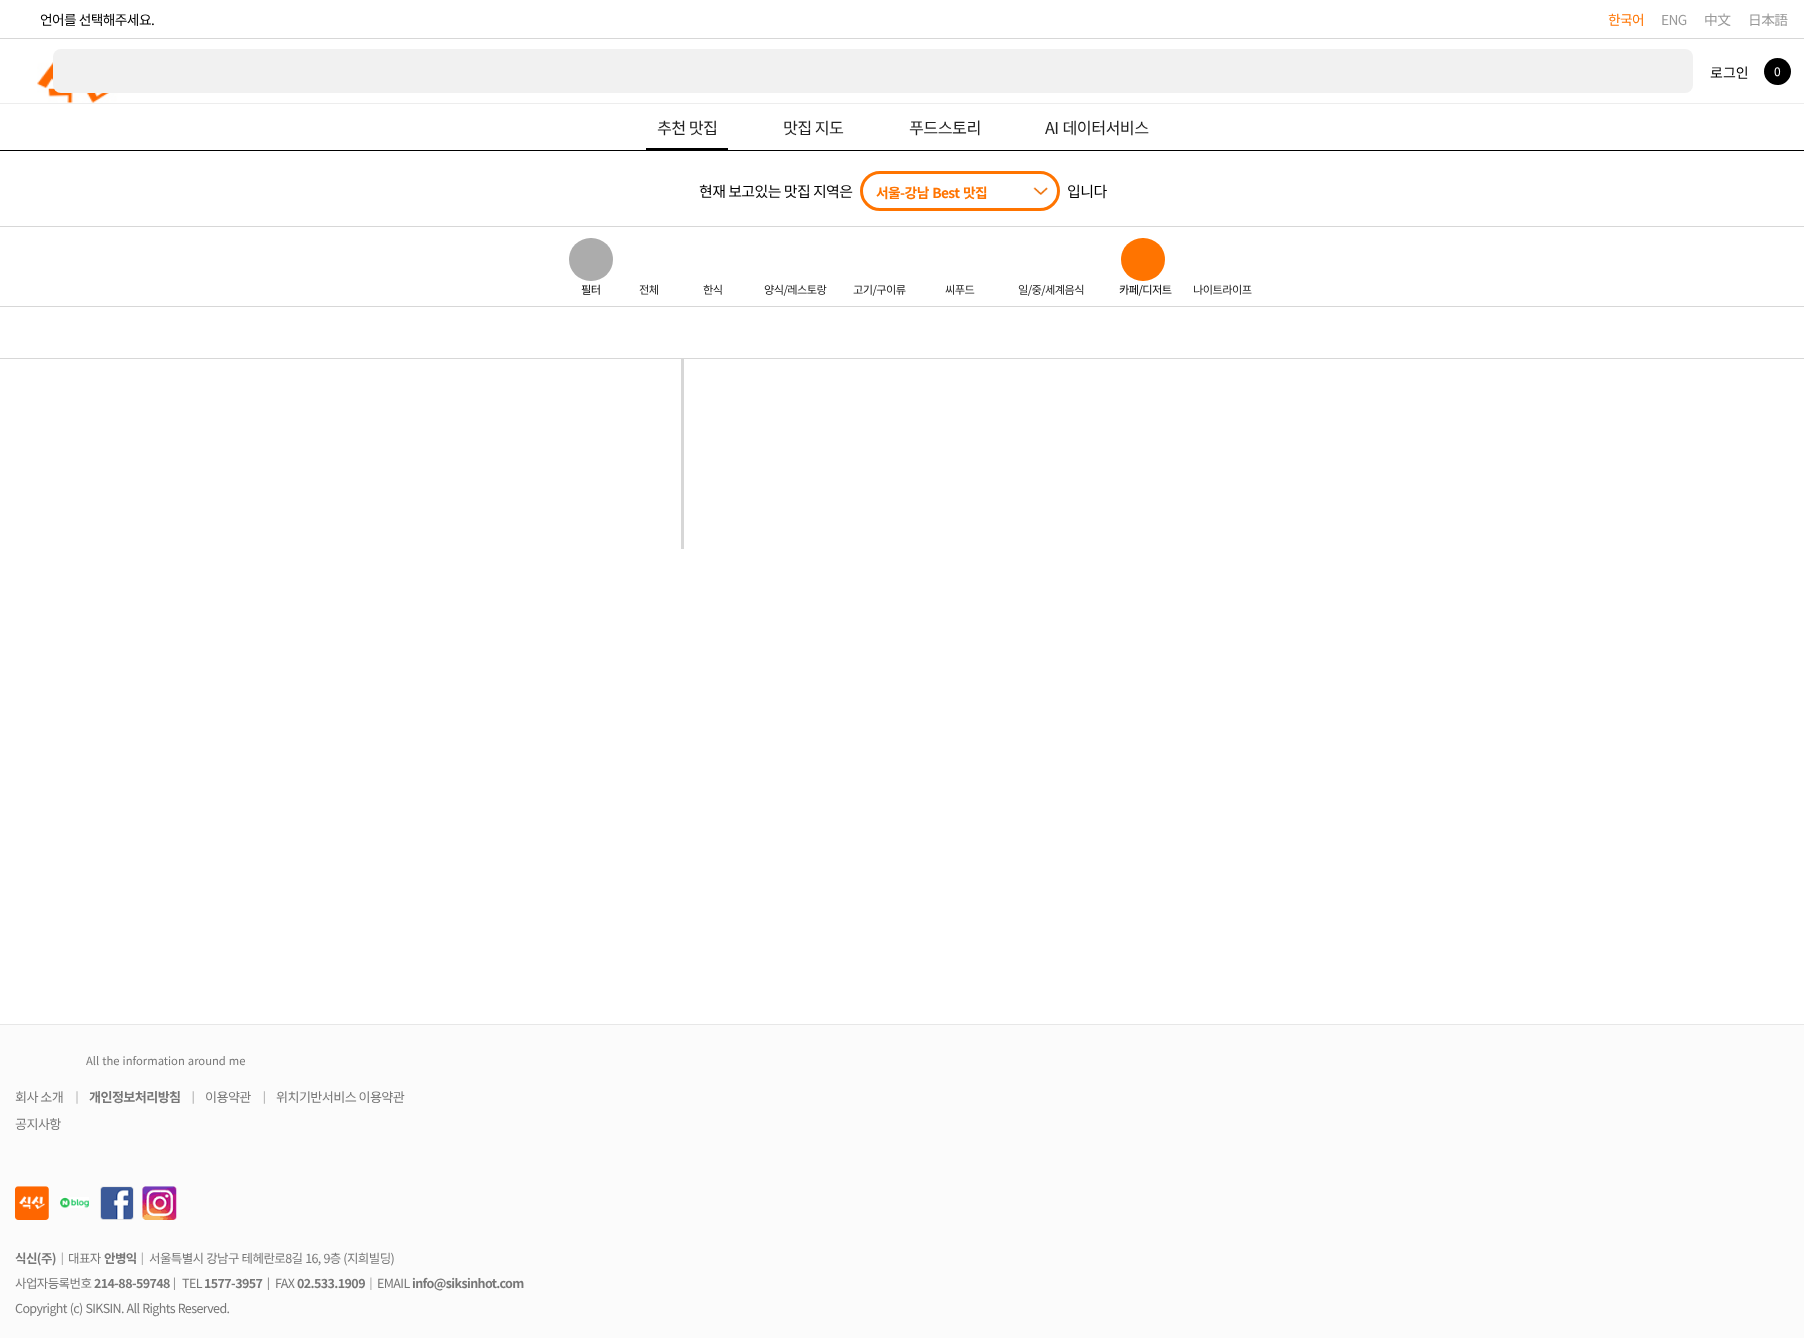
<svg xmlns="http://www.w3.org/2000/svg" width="1804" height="1338">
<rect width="100%" height="100%" fill="#fff"/>
<rect y="150" width="1804" height="1" fill="#000"/>
<rect y="38" width="1804" height="1" fill="#d7d7d7"/>
<text x="40" y="25" style="font-family:Noto Sans KR;font-size:13.75px;letter-spacing:-0.6px;fill:#000">언어를 선택해주세요.</text>
<text x="1608" y="25" style="font-family:Noto Sans KR;font-size:13.75px;letter-spacing:-0.6px;fill:#ff7400">한국어</text>
<text x="1661" y="25" style="font-family:'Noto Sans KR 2';font-size:13.75px;letter-spacing:-0.6px;fill:#999">ENG</text>
<text x="1704" y="25" style="font-family:'Noto Sans KR 2';font-size:13.75px;letter-spacing:-0.6px;fill:#999">中文</text>
<text x="1748" y="25" style="font-family:'Noto Sans KR 2';font-size:13.75px;letter-spacing:-0.6px;fill:#999">日本語</text>
<rect y="103" width="1804" height="1" fill="#ededed"/>
<image x="37" y="62" width="243" height="41" href="media/1.png"/>
<rect x="53" y="49" width="1640" height="44" rx="8" fill="#f1f1f1"/>
<text x="1710" y="78" style="font-family:Noto Sans KR;font-size:14px;fill:#000">로그인</text>
<circle cx="1777.5" cy="71.5" r="13.5" fill="#000"/>
<text x="1774" y="76" style="font-family:'Noto Sans KR 2';font-size:12px;fill:#fff">0</text>
<rect x="646" y="148" width="82" height="2" fill="#000"/>
<text x="657" y="134" style="font-family:Noto Sans KR;font-size:16.25px;letter-spacing:-0.6px;fill:#222">추천 맛집</text>
<text x="783" y="134" style="font-family:Noto Sans KR;font-size:16.25px;letter-spacing:-0.6px;fill:#222">맛집 지도</text>
<text x="909" y="134" style="font-family:Noto Sans KR;font-size:16.25px;letter-spacing:-0.6px;fill:#222">푸드스토리</text>
<text x="1045" y="134" word-spacing="1" style="font-family:Noto Sans KR;font-size:16.25px;letter-spacing:-0.6px;fill:#222">AI 데이터서비스</text>
<text x="699" y="197" style="font-family:Noto Sans KR;font-size:15px;letter-spacing:-0.6px;fill:#000">현재 보고있는 맛집 지역은</text>
<image x="1033" y="187" width="15" height="8" href="media/2.png"/>
<rect x="861.5" y="172.5" width="197" height="37" rx="18.5" fill="none" stroke="#ff7400" stroke-width="3"/>
<text x="876" y="198" word-spacing="1" style="font-family:Noto Sans KR;font-size:13.75px;font-weight:bold;letter-spacing:-0.6px;fill:#ff7400">서울-강남 Best 맛집</text>
<text x="1067" y="197" style="font-family:Noto Sans KR;font-size:15px;letter-spacing:-0.6px;fill:#000">입니다</text>
<rect y="226" width="1804" height="1" fill="#d7d7d7"/>
<rect x="569" y="238" width="44" height="43" rx="21.5" fill="#acacac"/>
<text x="581" y="294" style="font-family:Noto Sans KR;font-size:11.25px;letter-spacing:-0.6px;fill:#000">필터</text>
<text x="639" y="294" style="font-family:Noto Sans KR;font-size:11.25px;letter-spacing:-0.6px;fill:#222">전체</text>
<text x="703" y="294" style="font-family:Noto Sans KR;font-size:11.25px;letter-spacing:-0.6px;fill:#222">한식</text>
<text x="764" y="294" style="font-family:Noto Sans KR;font-size:11.25px;letter-spacing:-0.6px;fill:#222">양식/레스토랑</text>
<text x="853" y="294" style="font-family:Noto Sans KR;font-size:11.25px;letter-spacing:-0.6px;fill:#222">고기/구이류</text>
<text x="945" y="294" style="font-family:Noto Sans KR;font-size:11.25px;letter-spacing:-0.6px;fill:#222">씨푸드</text>
<text x="1018" y="294" style="font-family:Noto Sans KR;font-size:11.25px;letter-spacing:-0.6px;fill:#222">일/중/세계음식</text>
<rect x="1121" y="238" width="44" height="43" rx="21.5" fill="#ff7400"/>
<text x="1119" y="294" style="font-family:Noto Sans KR;font-size:11.25px;letter-spacing:-0.6px;fill:#000">카페/디저트</text>
<text x="1193" y="294" style="font-family:Noto Sans KR;font-size:11.25px;letter-spacing:-0.6px;fill:#222">나이트라이프</text>
<rect y="306" width="1804" height="1" fill="#d7d7d7"/>
<rect y="358" width="1804" height="1" fill="#d7d7d7"/>
<rect x="681" y="359" width="3" height="190" fill="#d7d7d7"/>
<rect y="1025" width="1804" height="313" fill="#fbfbfb"/>
<rect y="1024" width="1804" height="1" fill="#e7e7e7"/>
<text x="86" y="1065" word-spacing="0.5" style="font-family:'Noto Sans KR 2';font-size:11.25px;fill:#777">All the information around me</text>
<text x="15" y="1102" style="font-family:Noto Sans KR;font-size:13.1px;letter-spacing:-0.6px;fill:#777">회사 소개</text>
<image x="76" y="1091" width="2" height="13" href="media/3.png"/>
<text x="89" y="1102" style="font-family:Noto Sans KR;font-size:13.1px;font-weight:bold;letter-spacing:-0.6px;fill:#777">개인정보처리방침</text>
<image x="192" y="1091" width="2" height="13" href="media/4.png"/>
<text x="205" y="1102" style="font-family:Noto Sans KR;font-size:13.1px;letter-spacing:-0.6px;fill:#777">이용약관</text>
<image x="263" y="1091" width="2" height="13" href="media/5.png"/>
<text x="276" y="1102" style="font-family:Noto Sans KR;font-size:13.1px;letter-spacing:-0.6px;fill:#777">위치기반서비스 이용약관</text>
<text x="15" y="1129" style="font-family:Noto Sans KR;font-size:13.1px;letter-spacing:-0.6px;fill:#777">공지사항</text>
<image x="15" y="1186" width="34" height="34" href="media/6.png"/>
<image x="60" y="1197" width="29" height="11" href="media/7.png"/>
<image x="100" y="1186" width="34" height="34" href="media/8.png"/>
<image x="142" y="1186" width="35" height="34" href="media/9.png"/>
<text x="15" y="1263" style="font-family:Noto Sans KR;font-size:12.5px;font-weight:bold;letter-spacing:-0.6px;fill:#777">식신(주)</text>
<image x="61" y="1252" width="2" height="13" href="media/10.png"/>
<text x="68" y="1263" style="font-family:Noto Sans KR;font-size:12.5px;letter-spacing:-0.6px;fill:#777">대표자</text>
<text x="104" y="1263" style="font-family:Noto Sans KR;font-size:12.5px;font-weight:bold;letter-spacing:-0.6px;fill:#777">안병익</text>
<image x="141" y="1252" width="2" height="13" href="media/10.png"/>
<text x="149" y="1263" word-spacing="0.5" style="font-family:Noto Sans KR;font-size:12.5px;letter-spacing:-0.6px;fill:#777">서울특별시 강남구 테헤란로8길 16, 9층 (지희빌딩)</text>
<text x="15" y="1288" style="font-family:Noto Sans KR;font-size:12.5px;letter-spacing:-0.6px;fill:#777">사업자등록번호</text>
<text x="94" y="1288" style="font-family:'Noto Sans KR 2';font-size:12.5px;font-weight:bold;letter-spacing:-0.6px;fill:#777">214-88-59748</text>
<image x="173" y="1277" width="2" height="13" href="media/11.png"/>
<text x="182" y="1288" style="font-family:'Noto Sans KR 2';font-size:12.5px;letter-spacing:-0.6px;fill:#777">TEL</text>
<text x="204" y="1288" style="font-family:'Noto Sans KR 2';font-size:12.5px;font-weight:bold;letter-spacing:-0.6px;fill:#777">1577-3957</text>
<image x="267" y="1277" width="2" height="13" href="media/12.png"/>
<text x="275" y="1288" style="font-family:'Noto Sans KR 2';font-size:12.5px;letter-spacing:-0.6px;fill:#777">FAX</text>
<text x="297" y="1288" style="font-family:'Noto Sans KR 2';font-size:12.5px;font-weight:bold;letter-spacing:-0.6px;fill:#777">02.533.1909</text>
<image x="370" y="1277" width="2" height="13" href="media/13.png"/>
<text x="377" y="1288" style="font-family:'Noto Sans KR 2';font-size:12.5px;letter-spacing:-0.6px;fill:#777">EMAIL</text>
<text x="412" y="1288" style="font-family:'Noto Sans KR 2';font-size:12.5px;font-weight:bold;letter-spacing:-0.6px;fill:#777">info@siksinhot.com</text>
<text x="15" y="1313" word-spacing="0.5" style="font-family:'Noto Sans KR 2';font-size:12.5px;letter-spacing:-0.6px;fill:#777">Copyright (c) SIKSIN. All Rights Reserved.</text>
</svg>
